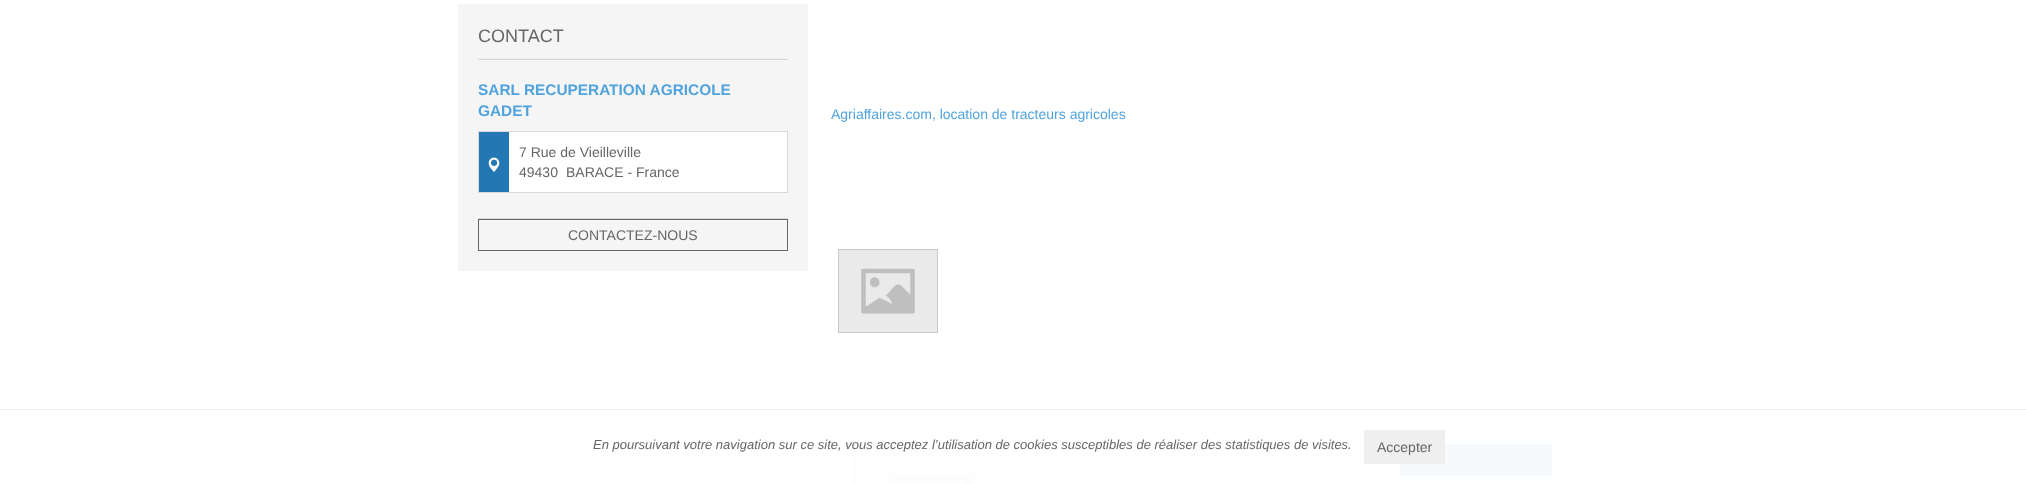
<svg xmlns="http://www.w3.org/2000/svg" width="2026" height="484">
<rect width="100%" height="100%" fill="#fff"/>
<rect x="458" y="4" width="350" height="267" fill="#f5f5f5"/>
<text x="478" y="42" style="font-family:Liberation Sans;font-size:18px;fill:#666">CONTACT</text>
<rect x="478" y="59" width="310" height="1" fill="#d9d9da"/>
<rect x="478" y="58" width="310" height="1" fill="#eee"/>
<rect x="478" y="218" width="310" height="1" fill="#d9d9da"/>
<text x="478" y="95" style="font-family:Liberation Sans;font-size:15.4px;font-weight:bold;fill:#50a3dd">SARL RECUPERATION AGRICOLE</text>
<text x="478" y="116" style="font-family:Liberation Sans;font-size:15.4px;font-weight:bold;fill:#50a3dd">GADET</text>
<rect x="509" y="132" width="278" height="60" fill="#fff"/>
<rect x="478.5" y="131.5" width="309" height="61" fill="none" stroke="#d9d9da"/>
<rect x="479" y="132" width="30" height="60" fill="#2378b3"/>
<image x="488" y="157" width="12" height="15" href="media/1.png"/>
<text x="519" y="157" style="font-family:Liberation Sans;font-size:14px;fill:#666">7 Rue de Vieilleville</text>
<text x="519" y="177" style="font-family:Liberation Sans;font-size:14px;fill:#666">49430</text>
<text x="566" y="177" style="font-family:Liberation Sans;font-size:14px;fill:#666">BARACE - France</text>
<rect x="478.5" y="219.5" width="309" height="31" fill="none" stroke="#666"/>
<text x="568" y="240" style="font-family:Liberation Sans;font-size:14px;fill:#666">CONTACTEZ-NOUS</text>
<text x="831" y="119" style="font-family:Liberation Sans;font-size:14px;fill:#50a3dd">Agriaffaires.com, location de tracteurs agricoles</text>
<image x="838" y="249" width="100" height="84" href="media/2.png"/>
<image x="854" y="444" width="152" height="40" href="media/3.png"/>
<rect x="1400" y="444" width="152" height="32" fill="#f6fafd"/>
<rect y="409" width="2026" height="1" fill="#eaeaea"/>
<text x="593" y="449" style="font-family:Liberation Sans;font-size:13px;font-style:italic;fill:#666">En poursuivant votre navigation sur ce site, vous acceptez l’utilisation de cookies susceptibles de réaliser des statistiques de visites.</text>
<rect x="1364" y="430" width="81" height="34" fill="#efefef"/>
<text x="1377" y="452" style="font-family:Liberation Sans;font-size:14px;fill:#666">Accepter</text>
</svg>
